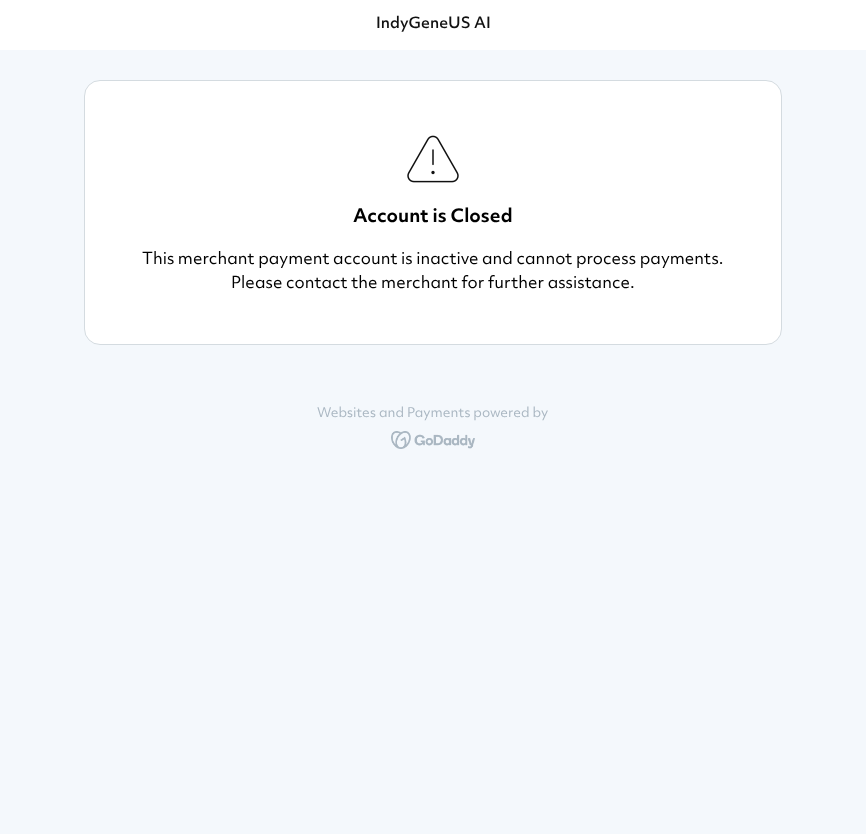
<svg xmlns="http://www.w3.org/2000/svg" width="866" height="834">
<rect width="100%" height="100%" fill="#f4f8fc"/>
<rect width="866" height="50" fill="#fff"/>
<text x="376" y="28" style="font-family:'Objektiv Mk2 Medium';font-size:15px;font-weight:500;fill:#111">IndyGeneUS AI</text>
<rect x="84.5" y="80.5" width="697" height="264" rx="15.5" fill="#fff" stroke="#d4dbe0"/>
<image x="407" y="135" width="52" height="48" href="media/1.png"/>
<text x="353" y="222" style="font-family:'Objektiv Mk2';font-size:18px;font-weight:bold;fill:#000">Account is Closed</text>
<text x="142" y="264" style="font-family:'Objektiv Mk2';font-size:16px;fill:#000">This merchant payment account is inactive and cannot process payments.</text>
<text x="231" y="288" style="font-family:'Objektiv Mk2';font-size:16px;fill:#000">Please contact the merchant for further assistance.</text>
<text x="317" y="417" style="font-family:'Objektiv Mk2';font-size:13px;fill:#aab7c2">Websites and Payments powered by</text>
<image x="391" y="431" width="84" height="18" href="media/2.png"/>
</svg>
